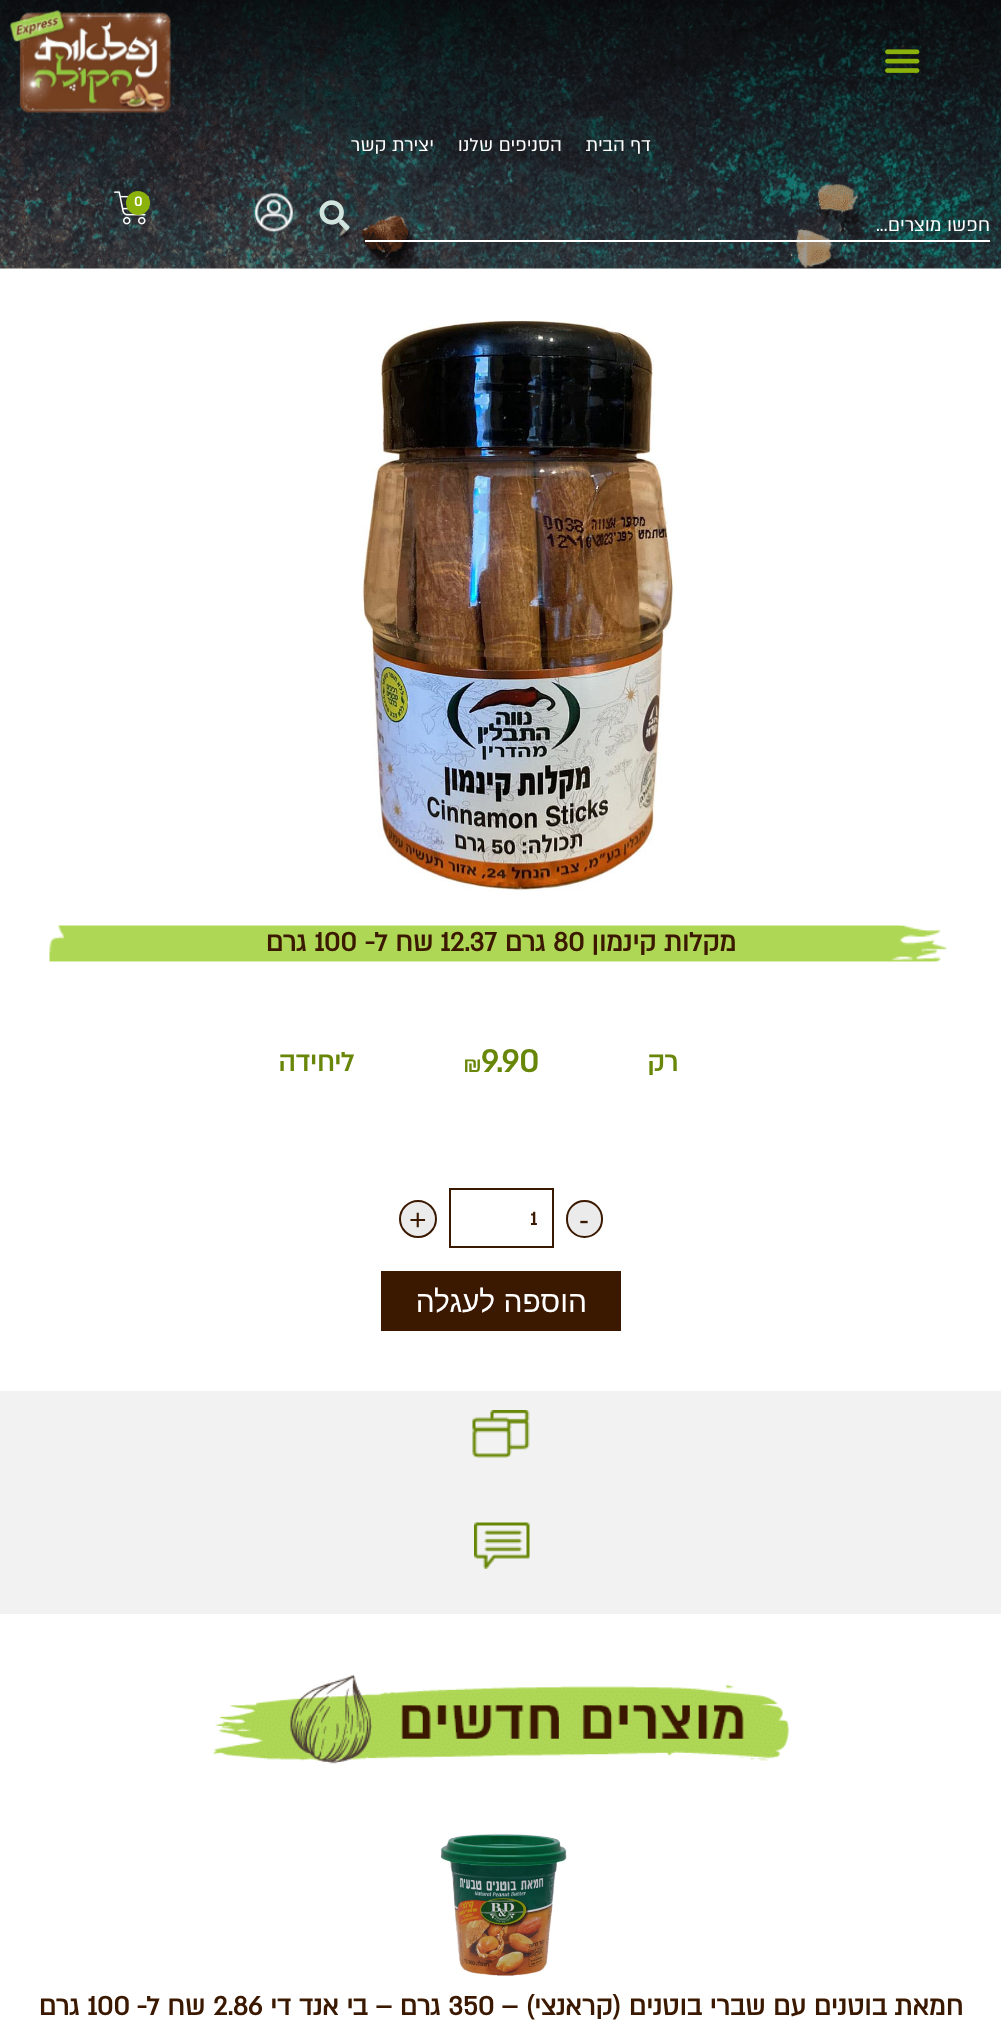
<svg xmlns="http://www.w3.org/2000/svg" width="1001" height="2032">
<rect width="100%" height="100%" fill="#fff"/>
<image x="0" y="0" width="1001" height="269" href="media/1.png"/>
<rect x="873" y="41" width="57" height="49" fill="#0000000d"/>
<image x="885" y="49" width="35" height="24" href="media/2.png"/>
<image x="10" y="10" width="161" height="104" href="media/3.png"/>
<text x="651" y="151" style="font-family:'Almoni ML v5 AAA';font-size:21px;direction:rtl;fill:#fff">דף הבית</text>
<text x="562" y="151" style="font-family:'Almoni ML v5 AAA';font-size:21px;direction:rtl;fill:#fff">הסניפים שלנו</text>
<text x="434" y="151" style="font-family:'Almoni ML v5 AAA';font-size:21px;direction:rtl;fill:#fff">יצירת קשר</text>
<image x="254" y="193" width="39" height="40" href="media/4.png"/>
<image x="114" y="191" width="35" height="34" href="media/5.png"/>
<circle cx="138" cy="203" r="12" fill="#8ab20b"/>
<text x="134" y="206" style="font-family:'Almoni ML v5 AAA';font-size:15px;font-weight:bold;fill:#fff">0</text>
<rect x="365" y="240" width="625" height="2" fill="#fff"/>
<text x="990" y="231" style="font-family:'Almoni ML v5 AAA';font-size:21px;direction:rtl;fill:#fff">חפשו מוצרים...</text>
<image x="319" y="200" width="31" height="31" href="media/6.png"/>
<image x="361" y="320" width="314" height="571" href="media/7.png"/>
<image x="49" y="925" width="898" height="37" href="media/8.png"/>
<text x="736" y="951" style="font-family:'Almoni ML v5 AAA';font-size:30px;font-weight:bold;direction:rtl;fill:#3b1800">מקלות קינמון</text>
<text x="553" y="951" style="font-family:'Almoni ML v5 AAA';font-size:30px;font-weight:bold;fill:#3b1800">80</text>
<text x="545" y="951" style="font-family:'Almoni ML v5 AAA';font-size:30px;font-weight:bold;direction:rtl;fill:#3b1800">גרם</text>
<text x="440" y="951" style="font-family:'Almoni ML v5 AAA';font-size:30px;font-weight:bold;fill:#3b1800">12.37</text>
<text x="433" y="951" style="font-family:'Almoni ML v5 AAA';font-size:30px;font-weight:bold;direction:rtl;fill:#3b1800">שח ל-</text>
<text x="314" y="951" style="font-family:'Almoni ML v5 AAA';font-size:30px;font-weight:bold;fill:#3b1800">100</text>
<text x="306" y="951" style="font-family:'Almoni ML v5 AAA';font-size:30px;font-weight:bold;direction:rtl;fill:#3b1800">גרם</text>
<text x="678" y="1071" style="font-family:'Almoni ML v5 AAA';font-size:30px;font-weight:bold;direction:rtl;fill:#688608">רק</text>
<text x="481" y="1072" style="font-family:'Almoni ML v5 AAA';font-size:36px;font-weight:bold;fill:#688608">9.90</text>
<text x="463" y="1072" style="font-family:'Almoni ML v5 AAA';font-size:25px;font-weight:bold;fill:#688608">₪</text>
<text x="354" y="1071" style="font-family:'Almoni ML v5 AAA';font-size:30px;font-weight:bold;direction:rtl;fill:#688608">ליחידה</text>
<rect x="567" y="1201" width="35" height="36" rx="17.5" fill="#ebebeb" stroke="#3b1800" stroke-width="2"/>
<text x="579" y="1230" style="font-family:Liberation Sans;font-size:30px;fill:#3b1800">-</text>
<rect x="450" y="1189" width="103" height="58" fill="none" stroke="#3b1800" stroke-width="2"/>
<text x="530" y="1225" style="font-family:'Almoni ML v5 AAA';font-size:21px;font-weight:bold;fill:#3b1800">1</text>
<circle cx="418" cy="1219" r="18" fill="#ebebeb" stroke="#3b1800" stroke-width="2"/>
<text x="409" y="1230" style="font-family:Liberation Sans;font-size:30px;fill:#3b1800">+</text>
<rect x="381" y="1271" width="240" height="60" fill="#3b1800"/>
<text x="587" y="1312" style="font-family:Liberation Sans;font-size:30px;direction:rtl;fill:#fff">הוספה לעגלה</text>
<rect y="1391" width="1001" height="223" fill="#f2f2f2"/>
<image x="472" y="1410" width="58" height="48" href="media/9.png"/>
<image x="474" y="1522" width="56" height="47" href="media/10.png"/>
<image x="213" y="1674" width="576" height="90" href="media/11.png"/>
<image x="440" y="1833" width="127" height="144" href="media/12.png"/>
<text x="963" y="2015" style="font-family:'Almoni ML v5 AAA';font-size:30px;font-weight:bold;direction:rtl;fill:#3b1800">חמאת בוטנים עם שברי בוטנים (קראנצי) –</text>
<text x="448" y="2015" style="font-family:'Almoni ML v5 AAA';font-size:30px;font-weight:bold;fill:#3b1800">350</text>
<text x="440" y="2015" style="font-family:'Almoni ML v5 AAA';font-size:30px;font-weight:bold;direction:rtl;fill:#3b1800">גרם – בי אנד די</text>
<text x="213" y="2015" style="font-family:'Almoni ML v5 AAA';font-size:30px;font-weight:bold;fill:#3b1800">2.86</text>
<text x="205" y="2015" style="font-family:'Almoni ML v5 AAA';font-size:30px;font-weight:bold;direction:rtl;fill:#3b1800">שח ל-</text>
<text x="87" y="2015" style="font-family:'Almoni ML v5 AAA';font-size:30px;font-weight:bold;fill:#3b1800">100</text>
<text x="79" y="2015" style="font-family:'Almoni ML v5 AAA';font-size:30px;font-weight:bold;direction:rtl;fill:#3b1800">גרם</text>
</svg>
